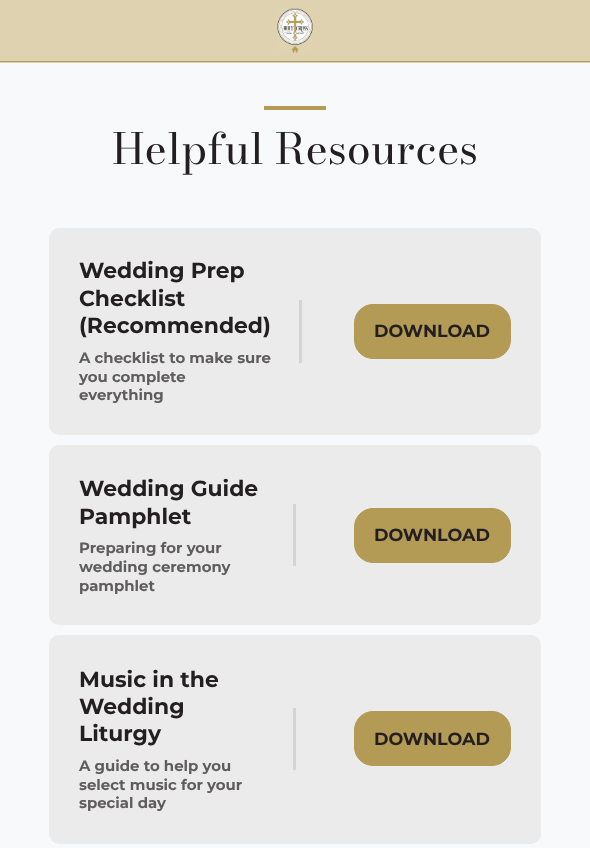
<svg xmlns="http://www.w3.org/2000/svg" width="590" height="848">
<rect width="100%" height="100%" fill="#f8f9fb"/>
<rect width="590" height="63" fill="#ded2b0"/>
<rect y="61" width="590" height="1" fill="#b39a55"/>
<image x="277" y="8" width="36" height="45" href="media/1.png"/>
<rect x="264" y="106" width="62" height="4" fill="#b39a55"/>
<text x="112" y="164" style="font-family:Bodoni Moda;font-size:42.75px;fill:#231f20">Helpful Resources</text>
<rect x="49" y="228" width="492" height="207" rx="10" fill="#ebebeb"/>
<text x="79" y="278" style="font-family:Montserrat;font-size:21.9px;font-weight:bold;fill:#231f20">Wedding Prep</text>
<text x="79" y="306" style="font-family:Montserrat;font-size:21.9px;font-weight:bold;fill:#231f20">Checklist</text>
<text x="79" y="333" style="font-family:Montserrat;font-size:21.9px;font-weight:bold;fill:#231f20">(Recommended)</text>
<rect x="299" y="300" width="3" height="63" fill="#d4d4d4"/>
<text x="79" y="363" style="font-family:Montserrat;font-size:14.9px;font-weight:bold;fill:#5f5c5d">A checklist to make sure</text>
<text x="79" y="382" style="font-family:Montserrat;font-size:14.9px;font-weight:bold;fill:#5f5c5d">you complete</text>
<text x="79" y="400" style="font-family:Montserrat;font-size:14.9px;font-weight:bold;fill:#5f5c5d">everything</text>
<rect x="354.5" y="304.5" width="156" height="54" rx="18.5" fill="#b39a55" stroke="#b39a55"/>
<text x="374" y="337" style="font-family:Montserrat;font-size:17.5px;font-weight:bold;fill:#231f20">DOWNLOAD</text>
<rect x="49" y="445" width="492" height="180" rx="10" fill="#ebebeb"/>
<text x="79" y="496" style="font-family:Montserrat;font-size:21.9px;font-weight:bold;fill:#231f20">Wedding Guide</text>
<text x="79" y="524" style="font-family:Montserrat;font-size:21.9px;font-weight:bold;fill:#231f20">Pamphlet</text>
<rect x="293" y="504" width="3" height="62" fill="#d4d4d4"/>
<text x="79" y="553" style="font-family:Montserrat;font-size:14.9px;font-weight:bold;fill:#5f5c5d">Preparing for your</text>
<text x="79" y="572" style="font-family:Montserrat;font-size:14.9px;font-weight:bold;fill:#5f5c5d">wedding ceremony</text>
<text x="79" y="591" style="font-family:Montserrat;font-size:14.9px;font-weight:bold;fill:#5f5c5d">pamphlet</text>
<rect x="354.5" y="508.5" width="156" height="54" rx="18.5" fill="#b39a55" stroke="#b39a55"/>
<text x="374" y="541" style="font-family:Montserrat;font-size:17.5px;font-weight:bold;fill:#231f20">DOWNLOAD</text>
<rect x="49" y="635" width="492" height="209" rx="10" fill="#ebebeb"/>
<text x="79" y="687" style="font-family:Montserrat;font-size:21.9px;font-weight:bold;fill:#231f20">Music in the</text>
<text x="79" y="714" style="font-family:Montserrat;font-size:21.9px;font-weight:bold;fill:#231f20">Wedding</text>
<text x="79" y="741" style="font-family:Montserrat;font-size:21.9px;font-weight:bold;fill:#231f20">Liturgy</text>
<rect x="293" y="708" width="3" height="62" fill="#d4d4d4"/>
<text x="79" y="771" style="font-family:Montserrat;font-size:14.9px;font-weight:bold;fill:#5f5c5d">A guide to help you</text>
<text x="79" y="790" style="font-family:Montserrat;font-size:14.9px;font-weight:bold;fill:#5f5c5d">select music for your</text>
<text x="79" y="808" style="font-family:Montserrat;font-size:14.9px;font-weight:bold;fill:#5f5c5d">special day</text>
<rect x="354.5" y="711.5" width="156" height="54" rx="18.5" fill="#b39a55" stroke="#b39a55"/>
<text x="374" y="745" style="font-family:Montserrat;font-size:17.5px;font-weight:bold;fill:#231f20">DOWNLOAD</text>
</svg>
